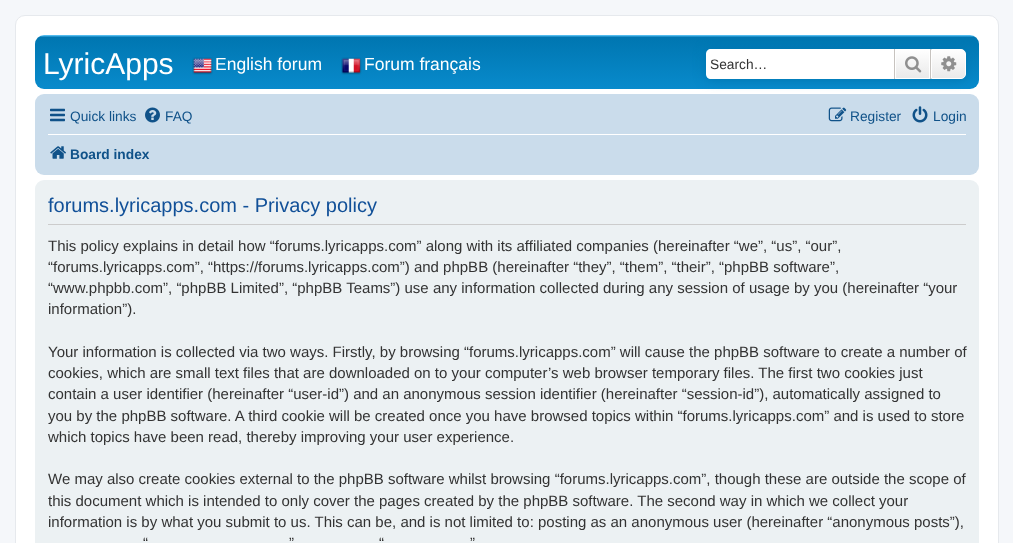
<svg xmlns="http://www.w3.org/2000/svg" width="1013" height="543">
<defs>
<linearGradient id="g1" gradientUnits="userSpaceOnUse" x1="507" y1="35" x2="507" y2="150"><stop offset="0" stop-color="#6aceff"/><stop offset="0.02" stop-color="#0076b1"/><stop offset="1" stop-color="#12a3eb"/></linearGradient>
<linearGradient id="g2" gradientUnits="userSpaceOnUse" x1="913" y1="49" x2="913" y2="79"><stop offset="0" stop-color="#fff"/><stop offset="1" stop-color="#e9e9e9"/></linearGradient>
<linearGradient id="g3" gradientUnits="userSpaceOnUse" x1="949" y1="49" x2="949" y2="79"><stop offset="0" stop-color="#fff"/><stop offset="1" stop-color="#e9e9e9"/></linearGradient>
</defs>
<rect width="100%" height="100%" fill="#f5f7fa"/>
<rect x="15.5" y="15.5" width="983" height="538" rx="9.5" fill="#fff" stroke="#e6e9ed"/>
<rect x="35" y="35" width="944" height="54" rx="9" fill="url(#g1)"/>
<text x="43" y="74" style="font-family:Liberation Sans;font-size:30px;fill:#fff">LyricApps</text>
<image x="192" y="57" width="21" height="18" href="media/1.png"/>
<text x="215" y="70" style="font-family:Liberation Sans;font-size:17.5px;fill:#fff">English forum</text>
<image x="341" y="57" width="21" height="18" href="media/2.png"/>
<text x="364" y="70" style="font-family:Liberation Sans;font-size:17.5px;fill:#fff">Forum français</text>
<rect x="35" y="94" width="944" height="81" rx="9" fill="#cadceb"/>
<rect x="706" y="49" width="260" height="30" rx="5" fill="#0075b0" filter="blur(6px)"/>
<path d="M711 49h183v30h-183c-3 0-5-2-5-5v-20c0-3 2-5 5-5z" fill="#fff"/>
<text x="710" y="69" style="font-family:Liberation Sans;font-size:13.75px;fill:#333">Search…</text>
<rect x="896" y="50" width="33" height="28" fill="url(#g2)"/>
<rect x="895.5" y="49.5" width="34" height="29" fill="none" stroke="#fff"/>
<rect x="930" y="49" width="1" height="30" fill="#c7c3bf"/>
<rect x="894" y="49" width="1" height="30" fill="#c7c3bf"/>
<image x="905" y="56" width="17" height="17" href="media/3.png"/>
<path d="M931.5 49.5h29.5c2.5 0 4.5 2 4.5 4.5v20c0 2.5-2 4.5-4.5 4.5h-29.5z" fill="url(#g3)" stroke="#fff"/>
<image x="941" y="56" width="16" height="16" href="media/4.png"/>
<image x="50" y="108" width="15" height="14" href="media/5.png"/>
<text x="70" y="121" style="font-family:Liberation Sans;font-size:13.75px;fill:#105289">Quick links</text>
<image x="145" y="107" width="15" height="16" href="media/6.png"/>
<text x="165" y="121" style="font-family:Liberation Sans;font-size:13.75px;fill:#105289">FAQ</text>
<image x="828" y="107" width="19" height="15" href="media/7.png"/>
<text x="850" y="121" style="font-family:Liberation Sans;font-size:13.75px;fill:#105289">Register</text>
<image x="912" y="106" width="16" height="17" href="media/8.png"/>
<text x="933" y="121" style="font-family:Liberation Sans;font-size:13.75px;fill:#105289">Login</text>
<rect x="48" y="134" width="918" height="1" fill="#fff"/>
<image x="50" y="146" width="16" height="13" href="media/9.png"/>
<text x="70" y="159" style="font-family:Liberation Sans;font-size:13.75px;font-weight:bold;fill:#105289">Board index</text>
<rect x="35" y="180" width="944" height="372" rx="9" fill="#ecf1f3"/>
<rect x="48" y="224" width="918" height="1" fill="#ccc"/>
<text x="48" y="212" style="font-family:Liberation Sans;font-size:20px;fill:#115098">forums.lyricapps.com - Privacy policy</text>
<text x="48" y="251" style="font-family:Liberation Sans;font-size:15px;fill:#333">This policy explains in detail how “forums.lyricapps.com” along with its affiliated companies (hereinafter “we”, “us”, “our”,</text>
<text x="48" y="272" style="font-family:Liberation Sans;font-size:15px;fill:#333">“forums.lyricapps.com”, “https://forums.lyricapps.com”) and phpBB (hereinafter “they”, “them”, “their”, “phpBB software”,</text>
<text x="48" y="293" style="font-family:Liberation Sans;font-size:15px;fill:#333">“www.phpbb.com”, “phpBB Limited”, “phpBB Teams”) use any information collected during any session of usage by you (hereinafter “your</text>
<text x="48" y="314" style="font-family:Liberation Sans;font-size:15px;fill:#333">information”).</text>
<text x="48" y="357" style="font-family:Liberation Sans;font-size:15px;fill:#333">Your information is collected via two ways. Firstly, by browsing “forums.lyricapps.com” will cause the phpBB software to create a number of</text>
<text x="48" y="378" style="font-family:Liberation Sans;font-size:15px;fill:#333">cookies, which are small text files that are downloaded on to your computer’s web browser temporary files. The first two cookies just</text>
<text x="48" y="399" style="font-family:Liberation Sans;font-size:15px;fill:#333">contain a user identifier (hereinafter “user-id”) and an anonymous session identifier (hereinafter “session-id”), automatically assigned to</text>
<text x="48" y="421" style="font-family:Liberation Sans;font-size:15px;fill:#333">you by the phpBB software. A third cookie will be created once you have browsed topics within “forums.lyricapps.com” and is used to store</text>
<text x="48" y="442" style="font-family:Liberation Sans;font-size:15px;fill:#333">which topics have been read, thereby improving your user experience.</text>
<text x="48" y="484" style="font-family:Liberation Sans;font-size:15px;fill:#333">We may also create cookies external to the phpBB software whilst browsing “forums.lyricapps.com”, though these are outside the scope of</text>
<text x="48" y="506" style="font-family:Liberation Sans;font-size:15px;fill:#333">this document which is intended to only cover the pages created by the phpBB software. The second way in which we collect your</text>
<text x="48" y="527" style="font-family:Liberation Sans;font-size:15px;fill:#333">information is by what you submit to us. This can be, and is not limited to: posting as an anonymous user (hereinafter “anonymous posts”),</text>
<text x="143" y="548" style="font-family:Liberation Sans;font-size:15px;fill:#333">“</text>
<text x="289" y="548" style="font-family:Liberation Sans;font-size:15px;fill:#333">”</text>
<text x="379" y="548" style="font-family:Liberation Sans;font-size:15px;fill:#333">“</text>
<text x="470" y="548" style="font-family:Liberation Sans;font-size:15px;fill:#333">”</text>
</svg>
